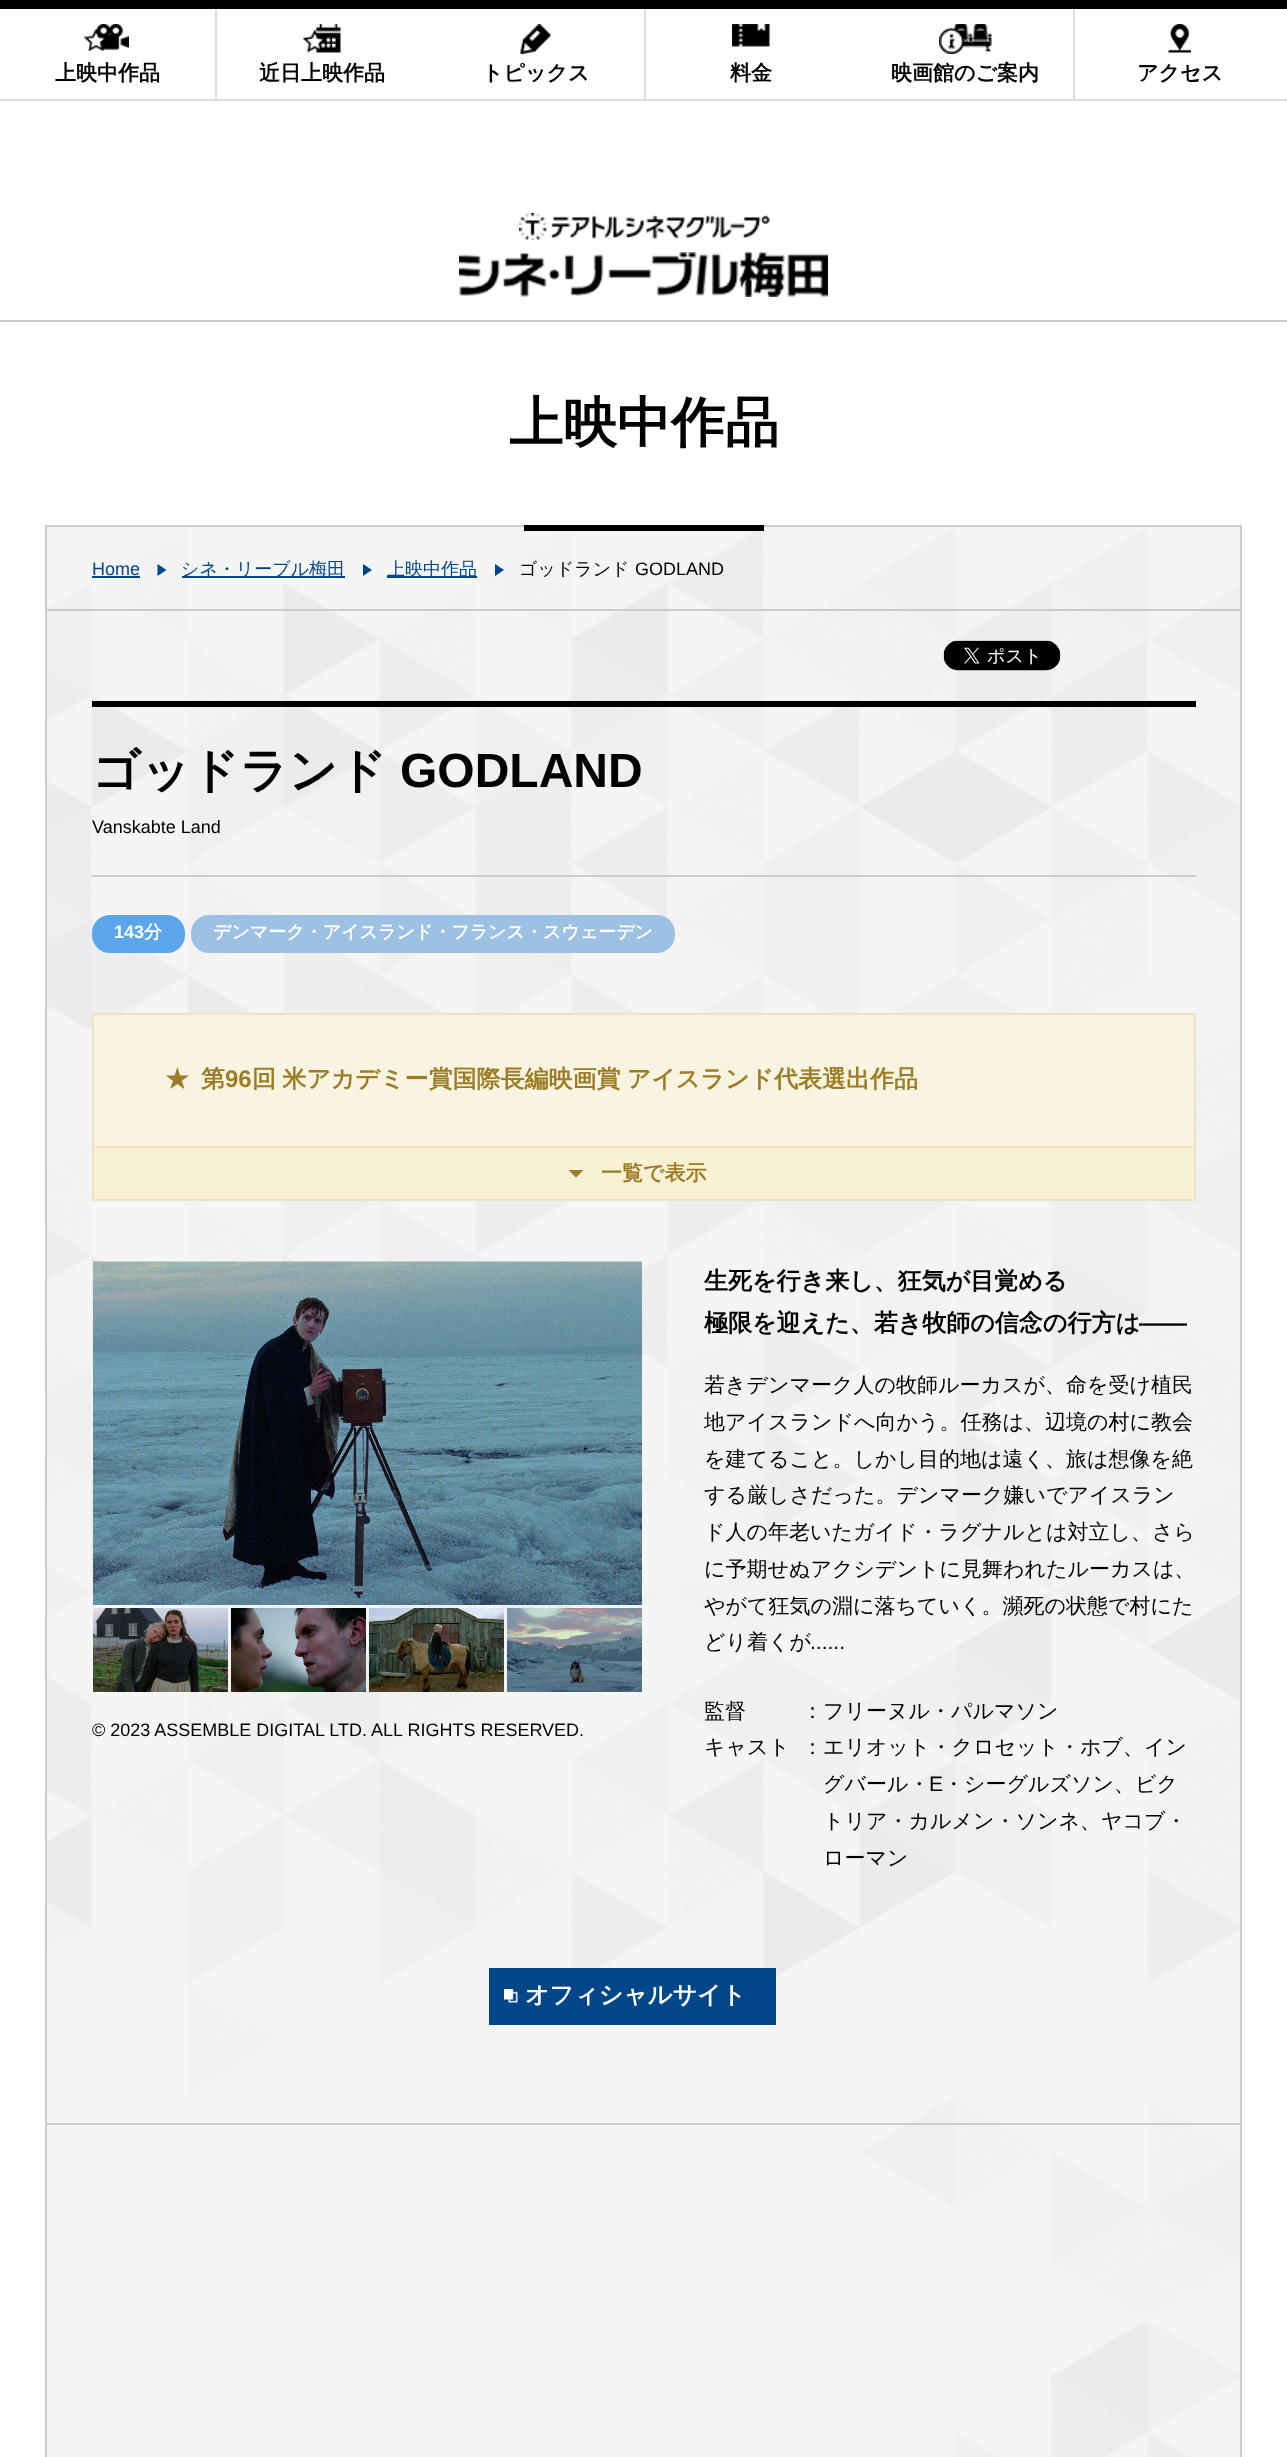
<svg xmlns="http://www.w3.org/2000/svg" width="1287" height="2457">
<rect width="100%" height="100%" fill="#fff"/>
<rect width="1287" height="9" fill="#000"/>
<rect y="99" width="1287" height="2" fill="#ddd"/>
<image x="84" y="24" width="45" height="27" href="media/1.png"/>
<text x="55" y="80" style="font-family:WenQuanYi Zen Hei;font-size:21px;font-weight:bold;fill:#000">上映中作品</text>
<rect x="215" y="9" width="2" height="92" fill="#ddd"/>
<image x="303" y="24" width="38" height="29" href="media/2.png"/>
<text x="259" y="80" style="font-family:WenQuanYi Zen Hei;font-size:21px;font-weight:bold;fill:#000">近日上映作品</text>
<image x="520" y="24" width="31" height="30" href="media/3.png"/>
<text x="482" y="80" style="font-family:WenQuanYi Zen Hei;font-size:21px;font-weight:bold;fill:#000">トピックス</text>
<rect x="644" y="9" width="2" height="92" fill="#ddd"/>
<image x="732" y="24" width="38" height="23" href="media/4.png"/>
<text x="730" y="80" style="font-family:WenQuanYi Zen Hei;font-size:21px;font-weight:bold;fill:#000">料金</text>
<image x="939" y="24" width="53" height="30" href="media/5.png"/>
<text x="891" y="80" style="font-family:WenQuanYi Zen Hei;font-size:21px;font-weight:bold;fill:#000">映画館のご案内</text>
<rect x="1073" y="9" width="2" height="92" fill="#ddd"/>
<image x="1168" y="24" width="23" height="29" href="media/6.png"/>
<text x="1137" y="80" style="font-family:WenQuanYi Zen Hei;font-size:21px;font-weight:bold;fill:#000">アクセス</text>
<rect y="320" width="1287" height="2" fill="#ccc"/>
<image x="519" y="213" width="251" height="27" href="media/7.png"/>
<image x="459" y="252" width="369" height="45" href="media/8.png"/>
<text x="509" y="441" style="font-family:WenQuanYi Zen Hei;font-size:54px;font-weight:bold;fill:#000">上映中作品</text>
<rect x="47" y="527" width="1193" height="1" fill="#f5f5f5"/>
<image x="47" y="528" width="1193" height="1929" href="media/9.png"/>
<rect x="46" y="526" width="1195" height="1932" fill="none" stroke="#ccc" stroke-width="2"/>
<rect x="47" y="609" width="1194" height="2" fill="#ccc"/>
<rect x="524" y="525" width="240" height="6" fill="#000"/>
<text x="92" y="575" style="font-family:Liberation Sans;font-size:18px;fill:#004688">Home</text>
<rect x="92" y="576" width="48" height="2" fill="#004688"/>
<path d="M157.5 576v-12l9 6z" fill="#004688"/>
<rect x="182" y="576" width="163" height="2" fill="#004688"/>
<text x="181" y="575" style="font-family:WenQuanYi Zen Hei;font-size:18px;font-weight:500;fill:#004688">シネ・リーブル梅田</text>
<path d="M363 576v-12l9 6z" fill="#004688"/>
<rect x="387" y="576" width="90" height="2" fill="#004688"/>
<text x="387" y="575" style="font-family:WenQuanYi Zen Hei;font-size:18px;font-weight:500;fill:#004688">上映中作品</text>
<path d="M495 576v-12l9 6z" fill="#004688"/>
<text x="519" y="575" style="font-family:WenQuanYi Zen Hei;font-size:18px;font-weight:500;fill:#000">ゴッドランド</text>
<text x="635" y="575" style="font-family:Liberation Sans;font-size:18px;fill:#000">GODLAND</text>
<image x="943" y="640" width="118" height="31" href="media/10.png"/>
<rect x="92" y="701" width="1104" height="6" fill="#000"/>
<rect x="92" y="875" width="1104" height="2" fill="#ccc"/>
<text x="92" y="787" style="font-family:WenQuanYi Zen Hei;font-size:48px;font-weight:bold;fill:#000">ゴッドランド</text>
<text x="400" y="787" style="font-family:Liberation Sans;font-size:48px;font-weight:bold;fill:#000">GODLAND</text>
<text x="92" y="833" style="font-family:Liberation Sans;font-size:18px;fill:#000">Vanskabte Land</text>
<rect x="92" y="915" width="93" height="38" rx="18" fill="#5aa5ec"/>
<text x="114" y="938" style="font-family:Liberation Sans;font-size:18px;font-weight:bold;fill:#fff">143</text>
<text x="144" y="938" style="font-family:WenQuanYi Zen Hei;font-size:18px;font-weight:bold;fill:#fff">分</text>
<rect x="191" y="915" width="484" height="38" rx="18" fill="#9dc1e3"/>
<text x="213" y="938" style="font-family:WenQuanYi Zen Hei;font-size:18px;font-weight:bold;fill:#fff">デンマーク・アイスランド・フランス・スウェーデン</text>
<rect x="93" y="1014" width="1102" height="133" fill="#f9f4e1" stroke="#eee2c1" stroke-width="2"/>
<text x="165" y="1087" style="font-family:WenQuanYi Zen Hei;font-size:24px;font-weight:bold;fill:#9d7c26">★</text>
<text x="201" y="1087" style="font-family:WenQuanYi Zen Hei;font-size:24px;font-weight:bold;fill:#9d7c26">第</text>
<text x="225" y="1087" style="font-family:Liberation Sans;font-size:24px;font-weight:bold;fill:#9d7c26">96</text>
<text x="252" y="1087" word-spacing="-1" style="font-family:WenQuanYi Zen Hei;font-size:24px;font-weight:bold;fill:#9d7c26">回 米アカデミー賞国際長編映画賞 アイスランド代表選出作品</text>
<rect x="94" y="1148" width="1100" height="51" fill="#f9f1d3"/>
<rect x="1194" y="1148" width="2" height="52" fill="#eee2c1"/>
<rect x="92" y="1199" width="1104" height="2" fill="#eee2c1"/>
<rect x="92" y="1148" width="2" height="52" fill="#eee2c1"/>
<path d="M568.5 1170h15l-7.5 7.5z" fill="#9d7c26"/>
<text x="601" y="1180" style="font-family:WenQuanYi Zen Hei;font-size:21px;font-weight:bold;fill:#9d7c26">一覧で表示</text>
<image x="93" y="1261" width="549" height="344" href="media/11.png"/>
<image x="93" y="1608" width="135" height="84" href="media/12.png"/>
<image x="231" y="1608" width="135" height="84" href="media/13.png"/>
<image x="369" y="1608" width="135" height="84" href="media/14.png"/>
<image x="507" y="1608" width="135" height="84" href="media/15.png"/>
<text x="92" y="1736" style="font-family:Liberation Sans;font-size:18px;fill:#000">© 2023 ASSEMBLE DIGITAL LTD. ALL RIGHTS RESERVED.</text>
<text x="704" y="1289" style="font-family:WenQuanYi Zen Hei;font-size:24px;font-weight:bold;fill:#000">生死を行き来し、狂気が目覚める</text>
<text x="704" y="1331" style="font-family:WenQuanYi Zen Hei;font-size:24px;font-weight:bold;fill:#000">極限を迎えた、若き牧師の信念の行方は</text>
<text x="1139" y="1331" style="font-family:Liberation Sans;font-size:24px;font-weight:bold;fill:#000">――</text>
<text x="704" y="1392" style="font-family:WenQuanYi Zen Hei;font-size:21px;font-weight:500;fill:#000">若きデンマーク人の牧師ルーカスが、命を受け植民</text>
<text x="704" y="1429" style="font-family:WenQuanYi Zen Hei;font-size:21px;font-weight:500;fill:#000">地アイスランドへ向かう。任務は、辺境の村に教会</text>
<text x="704" y="1466" style="font-family:WenQuanYi Zen Hei;font-size:21px;font-weight:500;fill:#000">を建てること。しかし目的地は遠く、旅は想像を絶</text>
<text x="704" y="1502" style="font-family:WenQuanYi Zen Hei;font-size:21px;font-weight:500;fill:#000">する厳しさだった。デンマーク嫌いでアイスラン</text>
<text x="704" y="1539" style="font-family:WenQuanYi Zen Hei;font-size:21px;font-weight:500;fill:#000">ド人の年老いたガイド・ラグナルとは対立し、さら</text>
<text x="704" y="1576" style="font-family:WenQuanYi Zen Hei;font-size:21px;font-weight:500;fill:#000">に予期せぬアクシデントに見舞われたルーカスは、</text>
<text x="704" y="1613" style="font-family:WenQuanYi Zen Hei;font-size:21px;font-weight:500;fill:#000">やがて狂気の淵に落ちていく。瀕死の状態で村にた</text>
<text x="704" y="1649" style="font-family:WenQuanYi Zen Hei;font-size:21px;font-weight:500;fill:#000">どり着くが</text>
<text x="810" y="1649" style="font-family:Liberation Sans;font-size:21px;fill:#000">......</text>
<text x="704" y="1718" style="font-family:WenQuanYi Zen Hei;font-size:21px;font-weight:500;fill:#000">監督</text>
<text x="802" y="1718" style="font-family:WenQuanYi Zen Hei;font-size:21px;font-weight:500;fill:#000">：フリーヌル・パルマソン</text>
<text x="704" y="1754" style="font-family:WenQuanYi Zen Hei;font-size:21px;font-weight:500;fill:#000">キャスト</text>
<text x="802" y="1754" style="font-family:WenQuanYi Zen Hei;font-size:21px;font-weight:500;fill:#000">：エリオット・クロセット・ホブ、イン</text>
<text x="823" y="1791" style="font-family:WenQuanYi Zen Hei;font-size:21px;font-weight:500;fill:#000">グバール・</text>
<text x="929" y="1791" style="font-family:Liberation Sans;font-size:21px;fill:#000">E</text>
<text x="943" y="1791" style="font-family:WenQuanYi Zen Hei;font-size:21px;font-weight:500;fill:#000">・シーグルズソン、ビク</text>
<text x="823" y="1828" style="font-family:WenQuanYi Zen Hei;font-size:21px;font-weight:500;fill:#000">トリア・カルメン・ソンネ、ヤコブ・</text>
<text x="823" y="1865" style="font-family:WenQuanYi Zen Hei;font-size:21px;font-weight:500;fill:#000">ローマン</text>
<rect x="489" y="1968" width="287" height="57" fill="#004688"/>
<image x="504" y="1989" width="14" height="14" href="media/16.png"/>
<text x="525" y="2003" style="font-family:WenQuanYi Zen Hei;font-size:24px;font-weight:bold;fill:#fff">オフィシャルサイト</text>
<rect x="47" y="2123" width="1194" height="2" fill="#ccc"/>
</svg>
